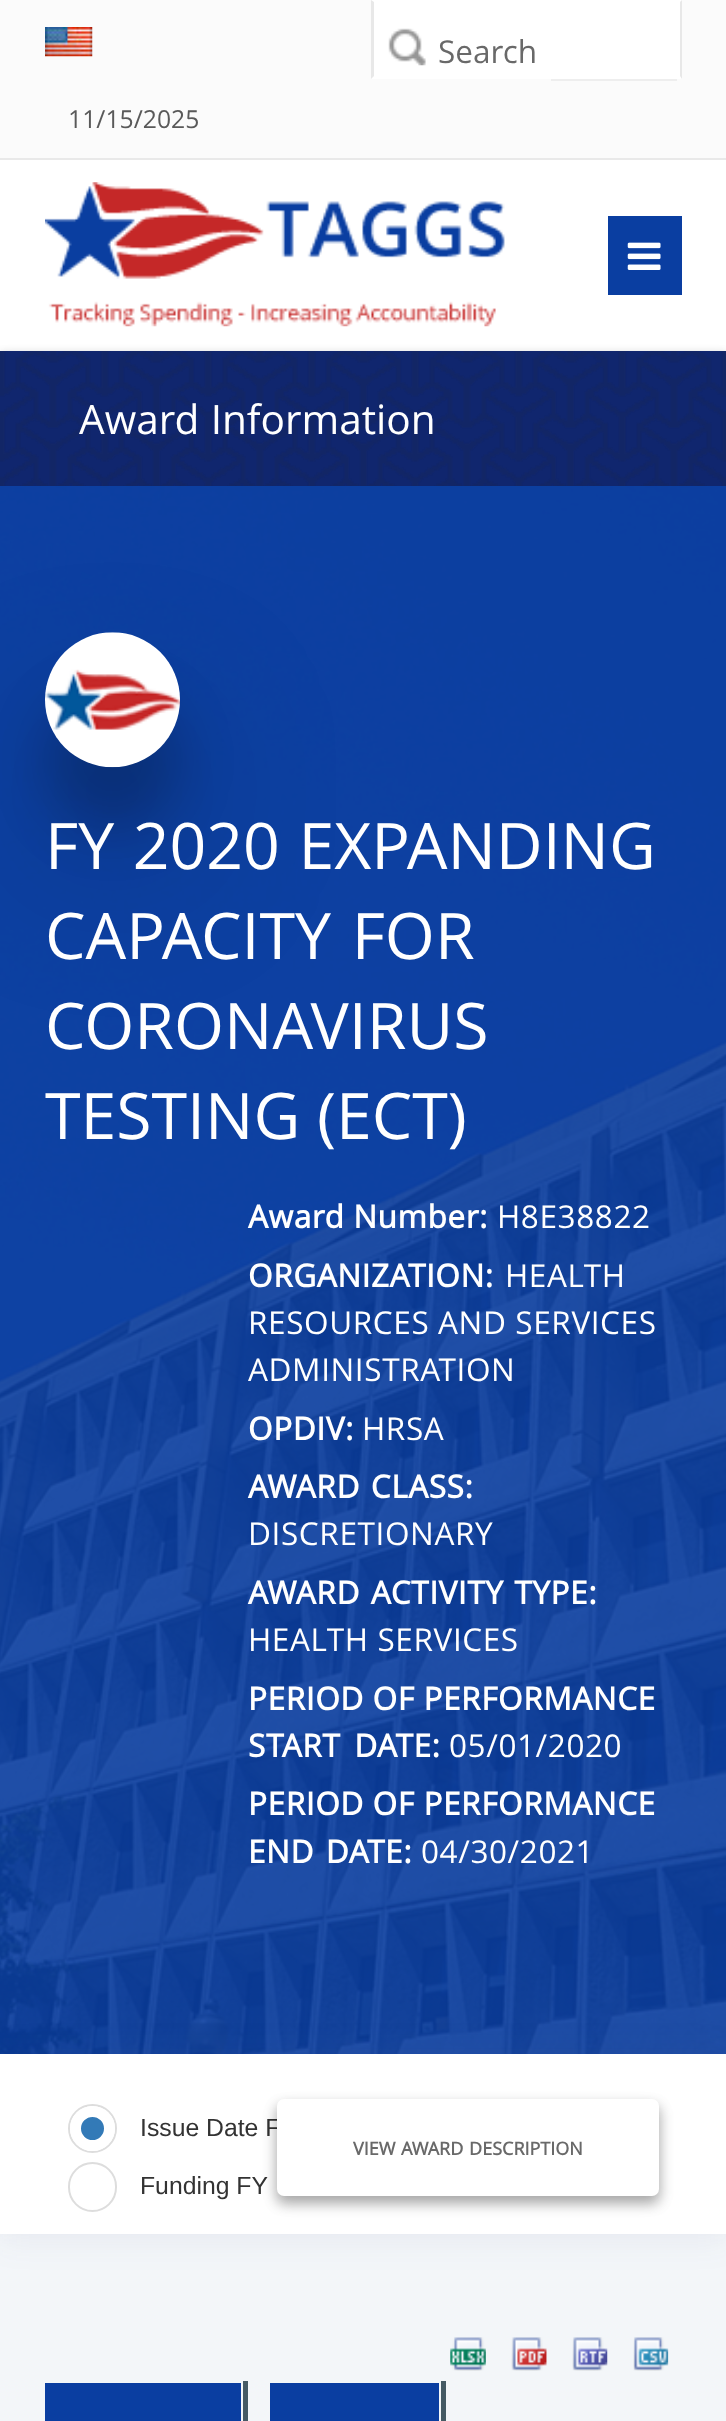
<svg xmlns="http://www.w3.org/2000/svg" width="726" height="2421">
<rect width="100%" height="100%" fill="#fff"/>
<rect width="726" height="158" fill="#fbfbfb"/>
<rect y="158" width="726" height="2" fill="#e9e9e9"/>
<rect x="371" width="311" height="79" fill="#fff"/>
<path d="M682 0v79l-2-3v-74z" fill="#e8e8e8"/>
<path d="M371 79v-79l3 2v74z" fill="#e8e8e8"/>
<image x="388" y="28" width="38" height="38" href="media/1.png"/>
<text x="438" y="63" style="font-family:Open Sans;font-size:31.5px;fill:#696969">Search</text>
<rect x="551" y="79" width="126" height="2" fill="#eee"/>
<image x="45" y="27" width="48" height="30" href="media/2.png"/>
<text x="68" y="128" style="font-family:Open Sans;font-size:24.75px;fill:#595959">11/15/2025</text>
<image x="45" y="182" width="460" height="145" href="media/3.png"/>
<rect x="608" y="216" width="74" height="79" fill="#0a3ea1"/>
<image x="627" y="242" width="34" height="28" href="media/4.png"/>
<rect y="356" width="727" height="135" fill="#0000003b" filter="blur(5.5px)"/>
<rect y="356" width="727" height="135" fill="#00000029" filter="blur(5.5px)"/>
<rect y="351" width="726" height="135" fill="#10266e"/>
<image x="0" y="351" width="726" height="135" href="media/5.png"/>
<text x="79" y="434" word-spacing="1" style="font-family:Open Sans;font-size:40.5px;fill:#fff">Award Information</text>
<rect y="2234" width="726" height="187" fill="#f3f6f9"/>
<image x="0" y="486" width="726" height="1568" href="media/6.png"/>
<rect y="486" width="726" height="1568" fill="#0a3ea1e6"/>
<rect x="45" y="693" width="135" height="135" rx="67.5" fill="#00000033" filter="blur(27px)"/>
<rect x="45" y="722" width="135" height="135" rx="67.5" fill="#00000038" filter="blur(86.5px)"/>
<image x="45" y="632" width="135" height="136" href="media/7.png"/>
<text x="45" y="869" word-spacing="2" style="font-family:Open Sans;font-size:64.25px;fill:#fff">FY 2020 EXPANDING</text>
<text x="45" y="959" word-spacing="4" style="font-family:Open Sans;font-size:64.25px;fill:#fff">CAPACITY FOR</text>
<text x="45" y="1049" style="font-family:Open Sans;font-size:64.25px;fill:#fff">CORONAVIRUS</text>
<text x="45" y="1139" style="font-family:Open Sans;font-size:64.25px;fill:#fff">TESTING (ECT)</text>
<text x="248" y="1228" style="font-family:Open Sans;font-size:31.5px;font-weight:bold;letter-spacing:0.6px;fill:#fff">Award Number:</text>
<text x="497" y="1228" style="font-family:Open Sans;font-size:31.5px;letter-spacing:0.6px;fill:#fff">H8E38822</text>
<text x="248" y="1287" style="font-family:Open Sans;font-size:31.5px;font-weight:bold;letter-spacing:0.6px;fill:#fff">ORGANIZATION:</text>
<text x="505" y="1287" style="font-family:Open Sans;font-size:31.5px;letter-spacing:0.6px;fill:#fff">HEALTH</text>
<text x="248" y="1334" style="font-family:Open Sans;font-size:31.5px;letter-spacing:0.6px;fill:#fff">RESOURCES AND SERVICES</text>
<text x="248" y="1381" style="font-family:Open Sans;font-size:31.5px;letter-spacing:0.6px;fill:#fff">ADMINISTRATION</text>
<text x="248" y="1440" style="font-family:Open Sans;font-size:31.5px;font-weight:bold;letter-spacing:0.6px;fill:#fff">OPDIV:</text>
<text x="362" y="1440" style="font-family:Open Sans;font-size:31.5px;letter-spacing:0.6px;fill:#fff">HRSA</text>
<text x="248" y="1498" word-spacing="2" style="font-family:Open Sans;font-size:31.5px;font-weight:bold;letter-spacing:0.6px;fill:#fff">AWARD CLASS:</text>
<text x="248" y="1545" style="font-family:Open Sans;font-size:31.5px;letter-spacing:0.6px;fill:#fff">DISCRETIONARY</text>
<text x="248" y="1604" word-spacing="2" style="font-family:Open Sans;font-size:31.5px;font-weight:bold;letter-spacing:0.6px;fill:#fff">AWARD ACTIVITY TYPE:</text>
<text x="248" y="1651" style="font-family:Open Sans;font-size:31.5px;letter-spacing:0.6px;fill:#fff">HEALTH SERVICES</text>
<text x="248" y="1710" style="font-family:Open Sans;font-size:31.5px;font-weight:bold;letter-spacing:0.6px;fill:#fff">PERIOD OF PERFORMANCE</text>
<text x="248" y="1757" word-spacing="5" style="font-family:Open Sans;font-size:31.5px;font-weight:bold;letter-spacing:0.6px;fill:#fff">START DATE:</text>
<text x="449" y="1757" style="font-family:Open Sans;font-size:31.5px;letter-spacing:0.6px;fill:#fff">05/01/2020</text>
<text x="248" y="1815" style="font-family:Open Sans;font-size:31.5px;font-weight:bold;letter-spacing:0.6px;fill:#fff">PERIOD OF PERFORMANCE</text>
<text x="248" y="1863" word-spacing="3" style="font-family:Open Sans;font-size:31.5px;font-weight:bold;letter-spacing:0.6px;fill:#fff">END DATE:</text>
<text x="421" y="1863" style="font-family:Open Sans;font-size:31.5px;letter-spacing:0.6px;fill:#fff">04/30/2021</text>
<rect x="-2" y="2054" width="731" height="185" fill="#3e396b12" filter="blur(17px)"/>
<rect y="2054" width="726" height="180" fill="#fff"/>
<circle cx="92.5" cy="2128.5" r="23.5" fill="none" stroke="#ddd" stroke-width="2"/>
<circle cx="92.5" cy="2128.5" r="17" fill="#337ab7" stroke="#fff" stroke-width="11"/>
<text x="140" y="2136" style="font-family:Liberation Sans;font-size:24.75px;fill:#333">Issue Date F</text>
<rect x="69" y="2163" width="47" height="48" rx="23.5" fill="none" stroke="#ddd" stroke-width="2"/>
<text x="140" y="2194" style="font-family:Liberation Sans;font-size:24.75px;fill:#333">Funding FY</text>
<rect x="277" y="2106" width="382" height="97" rx="7" fill="#0000003b" filter="blur(7px)"/>
<rect x="277" y="2106" width="382" height="97" rx="7" fill="#00000029" filter="blur(7px)"/>
<rect x="277" y="2099" width="382" height="97" rx="7" fill="#fff"/>
<text x="353" y="2155" word-spacing="1" style="font-family:Open Sans;font-size:18px;font-weight:bold;fill:#696969">VIEW AWARD DESCRIPTION</text>
<image x="450" y="2337" width="36" height="34" href="media/8.png"/>
<image x="511" y="2337" width="36" height="34" href="media/9.png"/>
<image x="572" y="2337" width="36" height="34" href="media/10.png"/>
<image x="633" y="2337" width="36" height="34" href="media/11.png"/>
<rect x="243" y="2381" width="5" height="40" fill="#455a64"/>
<rect x="45" y="2383" width="196" height="38" fill="#0a3ea1"/>
<rect x="441" y="2381" width="5" height="40" fill="#455a64"/>
<rect x="270" y="2383" width="169" height="38" fill="#0a3ea1"/>
</svg>
